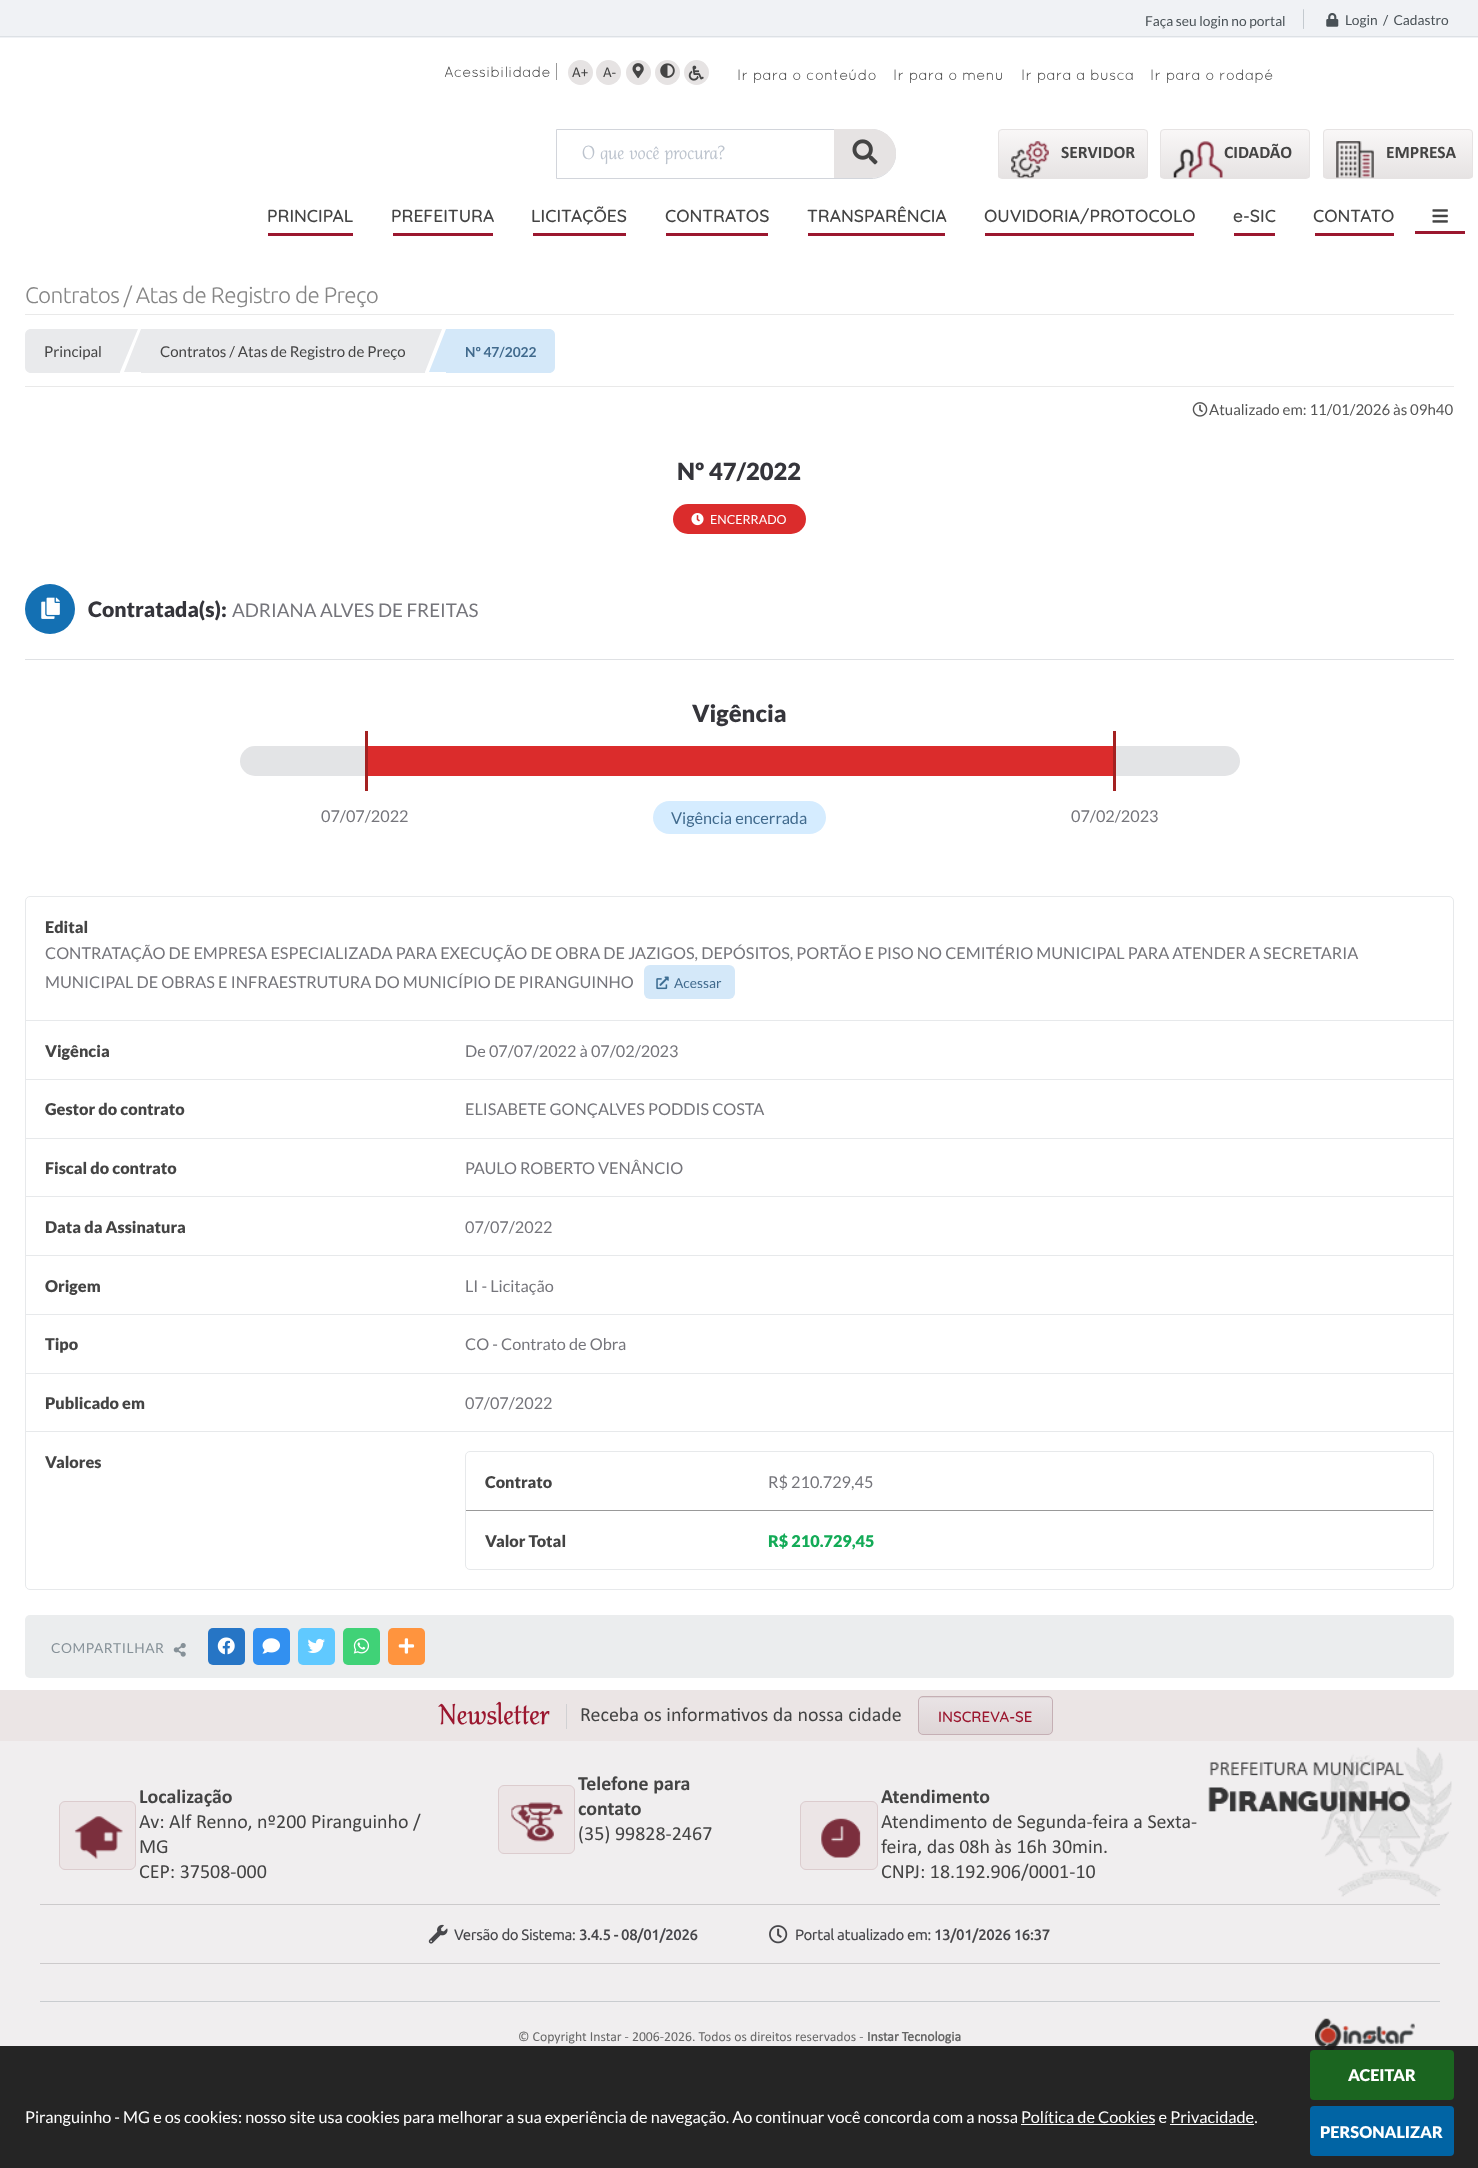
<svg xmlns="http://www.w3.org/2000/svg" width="1478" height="2168">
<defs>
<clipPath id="clip1"><rect x="998" y="129" width="150" height="50" rx="4"/></clipPath>
<linearGradient id="g1" gradientUnits="userSpaceOnUse" x1="1073" y1="178" x2="1073" y2="130"><stop offset="0" stop-color="#e6e3e3"/><stop offset="1" stop-color="#f9f7f7"/></linearGradient>
<clipPath id="clip2"><rect x="1160" y="129" width="150" height="50" rx="4"/></clipPath>
<linearGradient id="g2" gradientUnits="userSpaceOnUse" x1="1235" y1="178" x2="1235" y2="130"><stop offset="0" stop-color="#e6e3e3"/><stop offset="1" stop-color="#f9f7f7"/></linearGradient>
<clipPath id="clip3"><rect x="1323" y="129" width="150" height="50" rx="4"/></clipPath>
<linearGradient id="g3" gradientUnits="userSpaceOnUse" x1="1398" y1="178" x2="1398" y2="130"><stop offset="0" stop-color="#e6e3e3"/><stop offset="1" stop-color="#f9f7f7"/></linearGradient>
<clipPath id="clip4"><rect x="918" y="1696" width="135" height="39" rx="5"/></clipPath>
<linearGradient id="g4" gradientUnits="userSpaceOnUse" x1="985" y1="1698" x2="985" y2="1661"><stop offset="0" stop-color="#ded5d6"/><stop offset="1" stop-color="#e9e3e5"/></linearGradient>
<linearGradient id="g5" gradientUnits="userSpaceOnUse" x1="985" y1="1734" x2="985" y2="1698"><stop offset="0" stop-color="#ded5d6"/><stop offset="1" stop-color="#e9e3e5"/></linearGradient>
</defs>
<rect width="100%" height="100%" fill="#fff"/>
<rect width="1478" height="38" fill="#f0f2f5"/>
<rect y="36" width="1478" height="1" fill="#dde1e5"/>
<text x="1145" y="26" style="font-family:Lato;font-size:13.75px;fill:#495156">Faça seu login no portal</text>
<rect x="1303" y="9" width="1" height="20" rx="0.5" fill="#c4cacf"/>
<image x="1326" y="13" width="13" height="14" href="media/1.png"/>
<text x="1345" y="25" style="font-family:Lato;font-size:13.75px;fill:#495156" xml:space="preserve">Login  /  Cadastro</text>
<rect x="556" y="63" width="1" height="17" fill="#999"/>
<text x="444" y="77" style="font-family:Quicksand;font-size:15px;fill:#444">Acessibilidade</text>
<circle cx="580.5" cy="72.5" r="12.5" fill="#e6e3e3"/>
<text x="572" y="77" style="font-family:Calibri;font-size:15px;fill:#444">A+</text>
<circle cx="608.5" cy="72.5" r="12.5" fill="#e6e3e3"/>
<text x="603" y="77" style="font-family:Calibri;font-size:15px;fill:#444">A-</text>
<circle cx="638.5" cy="72.5" r="12.5" fill="#e6e3e3"/>
<image x="632" y="63" width="12" height="16" href="media/2.png"/>
<circle cx="667.5" cy="72.5" r="12.5" fill="#e6e3e3"/>
<image x="660" y="63" width="15" height="15" href="media/3.png"/>
<circle cx="696.5" cy="72.5" r="12.5" fill="#e6e3e3"/>
<image x="688" y="65" width="16" height="16" href="media/4.png"/>
<text x="737" y="80" style="font-family:Quicksand;font-size:15px;fill:#444">Ir para o conteúdo</text>
<text x="893" y="80" style="font-family:Quicksand;font-size:15px;fill:#444">Ir para o menu</text>
<text x="1021" y="80" style="font-family:Quicksand;font-size:15px;fill:#444">Ir para a busca</text>
<text x="1150" y="80" style="font-family:Quicksand;font-size:15px;fill:#444">Ir para o rodapé</text>
<path d="M556.5 129.5h314.5c13.5 0 24.5 11 24.5 24.5c0 13.5-11 24.5-24.5 24.5h-314.5z" fill="none" stroke="#d2d5db"/>
<text x="582" y="159" style="font-family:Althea;font-size:20px;fill:#bcc3cd">O que você procura?</text>
<path d="M834 129h37.5c13.5 0 24.5 11 24.5 24.5c0 13.5-11 24.5-24.5 24.5h-37.5z" fill="#e6e3e3"/>
<image x="852" y="139" width="26" height="26" href="media/5.png"/>
<g clip-path="url(#clip1)">
<rect x="998" y="130" width="150" height="48" fill="url(#g1)"/>
</g>
<rect x="998.5" y="129.5" width="149" height="49" rx="3.5" fill="none" stroke="#e6e3e3"/>
<image x="1011" y="141" width="38" height="37" href="media/6.png"/>
<text x="1061" y="158" style="font-family:Calibri;font-size:17.5px;font-weight:bold;fill:#444">SERVIDOR</text>
<g clip-path="url(#clip2)">
<rect x="1160" y="130" width="150" height="48" fill="url(#g2)"/>
</g>
<rect x="1160.5" y="129.5" width="149" height="49" rx="3.5" fill="none" stroke="#e6e3e3"/>
<image x="1173" y="141" width="50" height="37" href="media/7.png"/>
<text x="1224" y="158" style="font-family:Calibri;font-size:17.5px;font-weight:bold;fill:#444">CIDADÃO</text>
<g clip-path="url(#clip3)">
<rect x="1323" y="130" width="150" height="48" fill="url(#g3)"/>
</g>
<rect x="1323.5" y="129.5" width="149" height="49" rx="3.5" fill="none" stroke="#e6e3e3"/>
<image x="1336" y="141" width="38" height="37" href="media/8.png"/>
<text x="1386" y="158" style="font-family:Calibri;font-size:17.5px;font-weight:bold;fill:#444">EMPRESA</text>
<text x="267" y="222" style="font-family:Quicksand;font-size:17.5px;font-weight:500;fill:#444">PRINCIPAL</text>
<rect x="268" y="233" width="85" height="3" fill="#9b172f"/>
<text x="391" y="222" style="font-family:Quicksand;font-size:17.5px;font-weight:500;fill:#444">PREFEITURA</text>
<rect x="393" y="233" width="100" height="3" fill="#9b172f"/>
<text x="531" y="222" style="font-family:Quicksand;font-size:17.5px;font-weight:500;fill:#444">LICITAÇÕES</text>
<rect x="533" y="233" width="93" height="3" fill="#9b172f"/>
<text x="665" y="222" style="font-family:Quicksand;font-size:17.5px;font-weight:500;fill:#444">CONTRATOS</text>
<rect x="666" y="233" width="102" height="3" fill="#9b172f"/>
<text x="807" y="222" style="font-family:Quicksand;font-size:17.5px;font-weight:500;fill:#444">TRANSPARÊNCIA</text>
<rect x="808" y="233" width="137" height="3" fill="#9b172f"/>
<text x="984" y="222" style="font-family:Quicksand;font-size:17.5px;font-weight:500;fill:#444">OUVIDORIA/PROTOCOLO</text>
<rect x="985" y="233" width="209" height="3" fill="#9b172f"/>
<text x="1233" y="222" style="font-family:Quicksand;font-size:17.5px;font-weight:500;fill:#444">e-SIC</text>
<rect x="1234" y="233" width="41" height="3" fill="#9b172f"/>
<text x="1313" y="222" style="font-family:Quicksand;font-size:17.5px;font-weight:500;fill:#444">CONTATO</text>
<rect x="1315" y="233" width="79" height="3" fill="#9b172f"/>
<rect x="1415" y="231" width="50" height="3" fill="#9b172f"/>
<image x="1432" y="209" width="16" height="14" href="media/9.png"/>
<rect y="1741" width="1478" height="324" fill="#f0eeef"/>
<image x="1315" y="2018" width="100" height="32" href="media/26.png"/>
<rect y="2046" width="1478" height="122" fill="#191919f2"/>
<text x="25" y="2123" style="font-family:Lato;font-size:16.25px;fill:#fff">Piranguinho - MG e os cookies: nosso site usa cookies para melhorar a sua experiência de navegação. Ao continuar você concorda com a nossa Política de Cookies e Privacidade.</text>
<rect x="1021" y="2124" width="134" height="1" fill="#fff"/>
<rect x="1170" y="2124" width="84" height="1" fill="#fff"/>
<rect x="1310" y="2050" width="144" height="50" rx="4" fill="#1b6520"/>
<text x="1348" y="2081" style="font-family:Lato;font-size:16.25px;font-weight:900;fill:#fff">ACEITAR</text>
<rect x="1310" y="2106" width="144" height="50" rx="4" fill="#0164a4"/>
<text x="1320" y="2138" style="font-family:Lato;font-size:16.25px;font-weight:900;fill:#fff">PERSONALIZAR</text>
<text x="25" y="303" style="font-family:Ubuntu;font-size:22.5px;font-weight:300;letter-spacing:-0.6px;fill:#868686">Contratos / Atas de Registro de Preço</text>
<rect x="25" y="314" width="1429" height="1" fill="#e9e9e9"/>
<rect x="25" y="386" width="1429" height="1" fill="#e9e9e9"/>
<path d="M31 329h89v44h-89c-3.5 0-6-2.5-6-6v-32c0-3.5 2.5-6 6-6z" fill="#e9eaec"/>
<text x="44" y="357" style="font-family:Lato;font-size:15px;fill:#444">Principal</text>
<path d="M120 329h18l-18 43z" fill="#e9eaec"/>
<rect x="141" y="329" width="284" height="44" fill="#e9eaec"/>
<path d="M141 372h-17l17-43z" fill="#e9eaec"/>
<text x="160" y="357" style="font-family:Lato;font-size:15px;fill:#444">Contratos / Atas de Registro de Preço</text>
<path d="M425 329h17l-17 43z" fill="#e9eaec"/>
<path d="M446 329h103c3.5 0 6 2.5 6 6v32c0 3.5-2.5 6-6 6h-103z" fill="#d4e8f9"/>
<path d="M446 372h-17l17-43z" fill="#d4e8f9"/>
<text x="465" y="357" style="font-family:Lato;font-size:13.75px;font-weight:bold;fill:#416a8d">Nº 47/2022</text>
<image x="1192" y="402" width="16" height="15" href="media/10.png"/>
<text x="1209" y="415" style="font-family:Lato;font-size:15px;fill:#555">Atualizado em: 11/01/2026 às 09h40</text>
<text x="677" y="480" style="font-family:Lato;font-size:23.75px;font-weight:900;fill:#35353b">Nº 47/2022</text>
<rect x="673" y="504" width="133" height="30" rx="15" fill="#db2c2c"/>
<image x="691" y="513" width="13" height="13" href="media/11.png"/>
<text x="710" y="524" style="font-family:Lato;font-size:12.5px;fill:#fff">ENCERRADO</text>
<rect x="25" y="659" width="1429" height="1" fill="#dfe1e4"/>
<circle cx="50" cy="609" r="25" fill="#1470b3"/>
<image x="41" y="597" width="19" height="22" href="media/12.png"/>
<text x="88" y="617" style="font-family:Lato;font-size:21.25px;font-weight:900;fill:#35353b">Contratada(s):</text>
<text x="232" y="617" style="font-family:Lato;font-size:18.75px;fill:#75757b">ADRIANA ALVES DE FREITAS</text>
<text x="692" y="722" style="font-family:Lato;font-size:23.75px;font-weight:900;fill:#35353b">Vigência</text>
<rect x="240" y="746" width="1000" height="30" rx="15" fill="#e3e4e6"/>
<rect x="1113" y="731" width="3" height="60" fill="#a42121"/>
<rect x="365" y="731" width="3" height="60" fill="#a42121"/>
<rect x="368" y="746" width="745" height="30" fill="#db2c2c"/>
<text x="321" y="822" style="font-family:Lato;font-size:16.25px;fill:#75757b">07/07/2022</text>
<rect x="653" y="801" width="173" height="33" rx="16.5" fill="#d5ecff"/>
<text x="671" y="824" style="font-family:Lato;font-size:16.25px;fill:#416a8d">Vigência encerrada</text>
<text x="1071" y="822" style="font-family:Lato;font-size:16.25px;fill:#75757b">07/02/2023</text>
<rect x="25.5" y="896.5" width="1428" height="693" rx="4.5" fill="none" stroke="#e7e9eb"/>
<text x="45" y="933" style="font-family:Lato;font-size:16.25px;font-weight:900;fill:#444">Edital</text>
<text x="45" y="959" style="font-family:Lato;font-size:16.25px;fill:#75757b">CONTRATAÇÃO DE EMPRESA ESPECIALIZADA PARA EXECUÇÃO DE OBRA DE JAZIGOS, DEPÓSITOS, PORTÃO E PISO NO CEMITÉRIO MUNICIPAL PARA ATENDER A SECRETARIA</text>
<text x="45" y="988" style="font-family:Lato;font-size:16.25px;fill:#75757b">MUNICIPAL DE OBRAS E INFRAESTRUTURA DO MUNICÍPIO DE PIRANGUINHO</text>
<rect x="644" y="965" width="91" height="34" rx="6" fill="#d4e8f9"/>
<image x="656" y="976" width="13" height="14" href="media/13.png"/>
<text x="674" y="988" style="font-family:Lato;font-size:13.75px;fill:#416a8d">Acessar</text>
<rect x="26" y="1020" width="1427" height="1" fill="#e7e9eb"/>
<text x="45" y="1057" style="font-family:Lato;font-size:16.25px;font-weight:900;fill:#444">Vigência</text>
<text x="465" y="1057" style="font-family:Lato;font-size:16.25px;fill:#75757b">De 07/07/2022 à 07/02/2023</text>
<rect x="26" y="1079" width="1427" height="1" fill="#e7e9eb"/>
<text x="45" y="1115" style="font-family:Lato;font-size:16.25px;font-weight:900;fill:#444">Gestor do contrato</text>
<text x="465" y="1115" style="font-family:Lato;font-size:16.25px;fill:#75757b">ELISABETE GONÇALVES PODDIS COSTA</text>
<rect x="26" y="1138" width="1427" height="1" fill="#e7e9eb"/>
<text x="45" y="1174" style="font-family:Lato;font-size:16.25px;font-weight:900;fill:#444">Fiscal do contrato</text>
<text x="465" y="1174" style="font-family:Lato;font-size:16.25px;fill:#75757b">PAULO ROBERTO VENÂNCIO</text>
<rect x="26" y="1196" width="1427" height="1" fill="#e7e9eb"/>
<text x="45" y="1233" style="font-family:Lato;font-size:16.25px;font-weight:900;fill:#444">Data da Assinatura</text>
<text x="465" y="1233" style="font-family:Lato;font-size:16.25px;fill:#75757b">07/07/2022</text>
<rect x="26" y="1255" width="1427" height="1" fill="#e7e9eb"/>
<text x="45" y="1292" style="font-family:Lato;font-size:16.25px;font-weight:900;fill:#444">Origem</text>
<text x="465" y="1292" style="font-family:Lato;font-size:16.25px;fill:#75757b">LI - Licitação</text>
<rect x="26" y="1314" width="1427" height="1" fill="#e7e9eb"/>
<text x="45" y="1350" style="font-family:Lato;font-size:16.25px;font-weight:900;fill:#444">Tipo</text>
<text x="465" y="1350" style="font-family:Lato;font-size:16.25px;fill:#75757b">CO - Contrato de Obra</text>
<rect x="26" y="1373" width="1427" height="1" fill="#e7e9eb"/>
<text x="45" y="1409" style="font-family:Lato;font-size:16.25px;font-weight:900;fill:#444">Publicado em</text>
<text x="465" y="1409" style="font-family:Lato;font-size:16.25px;fill:#75757b">07/07/2022</text>
<rect x="26" y="1431" width="1427" height="1" fill="#e7e9eb"/>
<text x="45" y="1468" style="font-family:Lato;font-size:16.25px;font-weight:900;fill:#444">Valores</text>
<rect x="465.5" y="1451.5" width="968" height="118" rx="4.5" fill="none" stroke="#e7e9eb"/>
<text x="485" y="1488" style="font-family:Lato;font-size:16.25px;font-weight:900;fill:#444">Contrato</text>
<text x="768" y="1488" style="font-family:Lato;font-size:16.25px;fill:#75757b">R$ 210.729,45</text>
<rect x="466" y="1510" width="967" height="1" fill="#999"/>
<text x="485" y="1547" style="font-family:Lato;font-size:16.25px;font-weight:900;fill:#444">Valor Total</text>
<text x="768" y="1547" style="font-family:Lato;font-size:16.25px;font-weight:900;fill:#13ab57">R$ 210.729,45</text>
<rect x="25" y="1615" width="1429" height="63" rx="5" fill="#ebedee"/>
<text x="51" y="1653" style="font-family:Lato;font-size:13.75px;letter-spacing:0.6px;fill:#869198">COMPARTILHAR</text>
<image x="173" y="1643" width="13" height="14" href="media/14.png"/>
<rect x="208" y="1628" width="37" height="37" rx="5" fill="#2675c5"/>
<image x="217" y="1637" width="18" height="18" href="media/15.png"/>
<rect x="253" y="1628" width="37" height="37" rx="5" fill="#3290f0"/>
<image x="262" y="1638" width="18" height="16" href="media/16.png"/>
<rect x="298" y="1628" width="37" height="37" rx="5" fill="#60c9ff"/>
<image x="307" y="1638" width="18" height="15" href="media/17.png"/>
<rect x="343" y="1628" width="37" height="37" rx="5" fill="#40d277"/>
<image x="353" y="1638" width="17" height="16" href="media/18.png"/>
<rect x="388" y="1628" width="37" height="37" rx="5" fill="#ff943e"/>
<image x="398" y="1638" width="17" height="16" href="media/19.png"/>
<rect y="1690" width="1478" height="51" fill="#ebe5e5"/>
<text x="439" y="1724" style="font-family:Althea;font-size:30px;font-weight:600;fill:#9b172f">Newsletter</text>
<rect x="566" y="1704" width="1" height="25" fill="#d1d1d3"/>
<text x="580" y="1721" style="font-family:Calibri;font-size:20px;fill:#444">Receba os informativos da nossa cidade</text>
<g clip-path="url(#clip4)">
<rect x="918" y="1696" width="135" height="2" fill="url(#g4)"/>
<rect x="918" y="1698" width="135" height="36" fill="url(#g5)"/>
</g>
<rect x="918.5" y="1696.5" width="134" height="38" rx="4.5" fill="none" stroke="#c5afb4"/>
<text x="938" y="1722" style="font-family:Quicksand;font-size:15px;font-weight:500;fill:#9b172f">INSCREVA-SE</text>
<image x="1208" y="1747" width="244" height="150" href="media/20.png"/>
<rect x="59.5" y="1801.5" width="76" height="68" rx="5.5" fill="#ece5e6" stroke="#dcccce"/>
<image x="74" y="1816" width="49" height="43" href="media/21.png"/>
<text x="139" y="1803" style="font-family:Calibri;font-size:20px;font-weight:bold;fill:#444">Localização</text>
<text x="139" y="1828" style="font-family:Calibri;font-size:20px;fill:#444">Av: Alf Renno, nº200 Piranguinho /</text>
<text x="139" y="1853" style="font-family:Calibri;font-size:20px;fill:#444">MG</text>
<text x="139" y="1878" style="font-family:Calibri;font-size:20px;fill:#444">CEP: 37508-000</text>
<rect x="498.5" y="1785.5" width="76" height="68" rx="5.5" fill="#ece5e6" stroke="#dcccce"/>
<image x="511" y="1802" width="52" height="40" href="media/22.png"/>
<text x="578" y="1790" style="font-family:Calibri;font-size:20px;font-weight:bold;fill:#444">Telefone para</text>
<text x="578" y="1815" style="font-family:Calibri;font-size:20px;font-weight:bold;fill:#444">contato</text>
<text x="578" y="1840" style="font-family:Calibri;font-size:20px;fill:#444">(35) 99828-2467</text>
<rect x="800.5" y="1801.5" width="77" height="68" rx="5.5" fill="#ece5e6" stroke="#dcccce"/>
<image x="821" y="1818" width="40" height="40" href="media/23.png"/>
<text x="881" y="1803" style="font-family:Calibri;font-size:20px;font-weight:bold;fill:#444">Atendimento</text>
<text x="881" y="1828" style="font-family:Calibri;font-size:20px;fill:#444">Atendimento de Segunda-feira a Sexta-</text>
<text x="881" y="1853" style="font-family:Calibri;font-size:20px;fill:#444">feira, das 08h às 16h 30min.</text>
<text x="881" y="1878" style="font-family:Calibri;font-size:20px;fill:#444">CNPJ: 18.192.906/0001-10</text>
<rect x="40" y="1904" width="1400" height="1" fill="#cccacb"/>
<rect x="40" y="1963" width="1400" height="1" fill="#cccacb"/>
<image x="428" y="1924" width="20" height="20" href="media/24.png"/>
<text x="454" y="1940" style="font-family:Ubuntu;font-size:15px;letter-spacing:-0.4px;fill:#47474b">Versão do Sistema:</text>
<text x="579" y="1940" style="font-family:Ubuntu;font-size:15px;font-weight:500;letter-spacing:-0.4px;fill:#47474b">3.4.5 - 08/01/2026</text>
<image x="769" y="1925" width="19" height="19" href="media/25.png"/>
<text x="795" y="1940" style="font-family:Ubuntu;font-size:15px;letter-spacing:-0.4px;fill:#47474b">Portal atualizado em:</text>
<text x="934" y="1940" style="font-family:Ubuntu;font-size:15px;font-weight:500;letter-spacing:-0.4px;fill:#47474b">13/01/2026 16:37</text>
<rect x="40" y="2001" width="1400" height="1" fill="#c9cccf"/>
<text x="518" y="2041" style="font-family:Calibri;font-size:13.75px;fill:#666">© Copyright Instar - 2006-2026. Todos os direitos reservados -</text>
<text x="867" y="2041" style="font-family:'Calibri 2';font-size:13.75px;font-weight:bold;fill:#666">Instar Tecnologia</text>
</svg>
